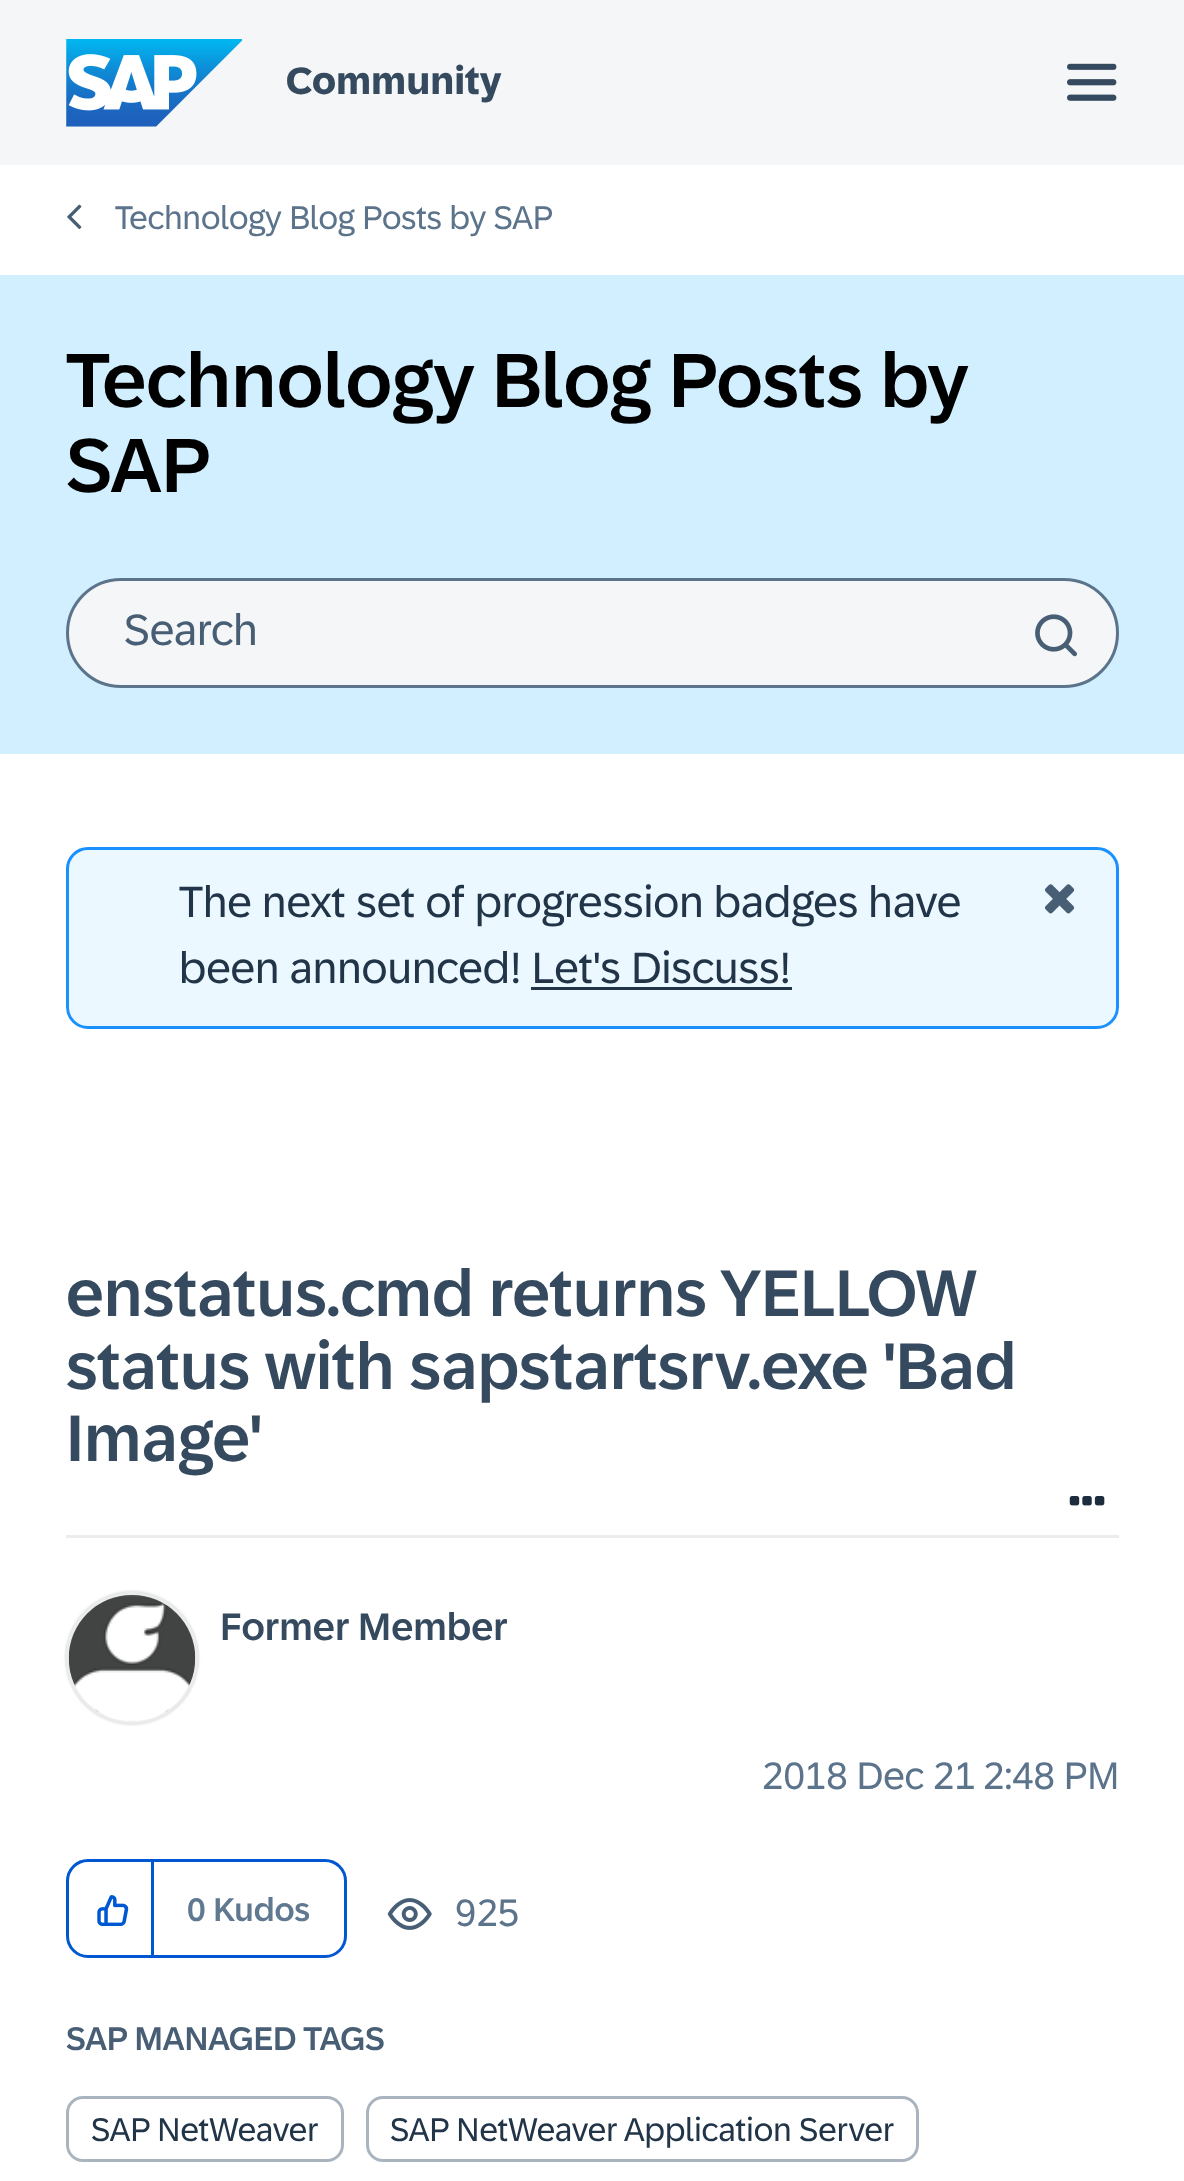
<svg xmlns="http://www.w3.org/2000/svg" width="1184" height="2181">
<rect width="100%" height="100%" fill="#fff"/>
<rect width="1184" height="165" fill="#f5f6f7"/>
<image x="66" y="39" width="176" height="88" href="media/1.png"/>
<text x="286" y="94" style="font-family:'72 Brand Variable';font-size:38.5px;font-weight:bold;fill:#354a5f">Community</text>
<image x="1067" y="63" width="50" height="38" href="media/2.png"/>
<image x="67" y="204" width="15" height="26" href="media/3.png"/>
<text x="115" y="229" style="font-family:'72 Brand Variable';font-size:33px;fill:#5b738b">Technology Blog Posts by SAP</text>
<rect y="275" width="1184" height="479" fill="#d1efff"/>
<text x="66" y="407" style="font-family:'72 Brand Variable';font-size:77px;font-weight:500;fill:#000">Technology Blog Posts by</text>
<text x="66" y="492" style="font-family:'72 Brand Variable';font-size:77px;font-weight:500;fill:#000">SAP</text>
<rect x="67.5" y="579.5" width="1050" height="107" rx="53.5" fill="#f5f6f7" stroke="#5b738b" stroke-width="3"/>
<text x="124" y="645" style="font-family:'72 Brand Variable';font-size:44px;fill:#475e75">Search</text>
<image x="1035" y="614" width="42" height="43" href="media/4.png"/>
<rect x="67.5" y="848.5" width="1050" height="179" rx="20.5" fill="#ebf8ff" stroke="#1b90ff" stroke-width="3"/>
<text x="179" y="917" style="font-family:'72 Brand Variable';font-size:44px;fill:#223548">The next set of progression badges have</text>
<text x="179" y="983" style="font-family:'72 Brand Variable';font-size:44px;fill:#223548">been announced! Let's Discuss!</text>
<rect x="531" y="987" width="261" height="3" fill="#223548"/>
<image x="1045" y="884" width="30" height="30" href="media/5.png"/>
<rect x="66" y="1535" width="1053" height="3" fill="#eaecee"/>
<text x="66" y="1316" style="font-family:'72 Brand Variable';font-size:66px;font-weight:500;fill:#354a5f">enstatus.cmd returns YELLOW</text>
<text x="66" y="1389" style="font-family:'72 Brand Variable';font-size:66px;font-weight:500;fill:#354a5f">status with sapstartsrv.exe 'Bad</text>
<text x="66" y="1461" style="font-family:'72 Brand Variable';font-size:66px;font-weight:500;fill:#354a5f">Image'</text>
<rect x="66" y="1592" width="132" height="132" rx="66" fill="#c4c4c4" filter="blur(1.5px)"/>
<circle cx="132" cy="1658" r="64.5" fill="none" stroke="#eaecee" stroke-width="3"/>
<image x="68" y="1595" width="128" height="127" href="media/6.png"/>
<text x="220" y="1640" style="font-family:'72 Brand Variable';font-size:38.5px;font-weight:500;fill:#354a5f">Former Member</text>
<image x="1069" y="1496" width="36" height="10" href="media/7.png"/>
<text x="762" y="1789" style="font-family:'72 Brand Variable';font-size:38.5px;fill:#5b738b">2018 Dec 21</text>
<text x="983" y="1789" style="font-family:'72 Brand Variable';font-size:38.5px;fill:#5b738b">2:48 PM</text>
<rect x="67.5" y="1860.5" width="278" height="96" rx="20.5" fill="none" stroke="#0057d2" stroke-width="3"/>
<rect x="151" y="1862" width="3" height="96" fill="#0057d2"/>
<image x="97" y="1895" width="32" height="31" href="media/8.png"/>
<text x="187" y="1921" style="font-family:'72 Brand Variable';font-size:33px;font-weight:500;fill:#617990">0 Kudos</text>
<image x="387" y="1898" width="45" height="32" href="media/9.png"/>
<text x="455" y="1926" style="font-family:'72 Brand Variable';font-size:38.5px;fill:#5b738b">925</text>
<text x="66" y="2050" style="font-family:'72 Brand Variable';font-size:33px;font-weight:500;fill:#475e75">SAP MANAGED TAGS</text>
<rect x="67.5" y="2097.5" width="275" height="63" rx="15.5" fill="none" stroke="#a9b4be" stroke-width="3"/>
<text x="91" y="2141" style="font-family:'72 Brand Variable';font-size:33px;fill:#223548">SAP NetWeaver</text>
<rect x="367.5" y="2097.5" width="550" height="63" rx="15.5" fill="none" stroke="#a9b4be" stroke-width="3"/>
<text x="390" y="2141" style="font-family:'72 Brand Variable';font-size:33px;fill:#223548">SAP NetWeaver Application Server</text>
</svg>
